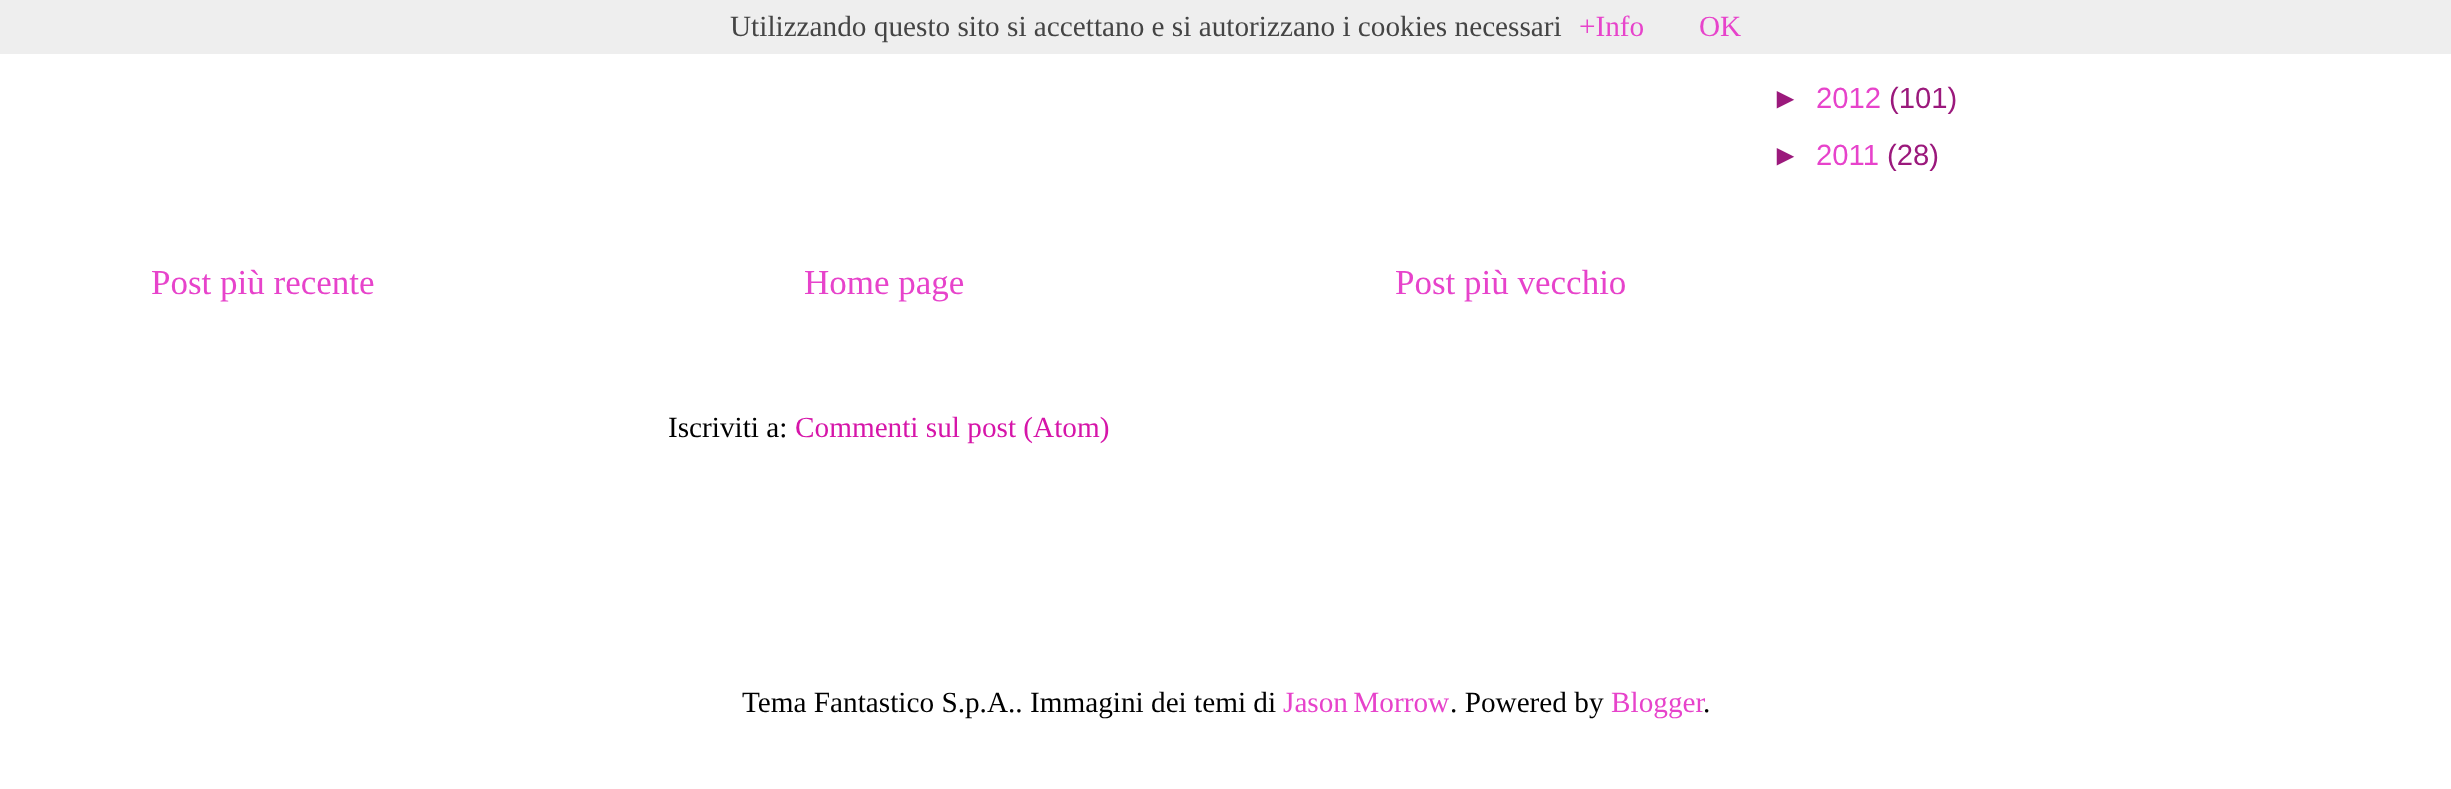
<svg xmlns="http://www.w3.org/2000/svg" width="2451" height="789">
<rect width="100%" height="100%" fill="#fff"/>
<rect width="2451" height="54" fill="#eee"/>
<text x="730" y="36" style="font-family:Liberation Serif;font-size:29.25px;fill:#444">Utilizzando questo sito si accettano e si autorizzano i cookies necessari</text>
<text x="1579" y="36" style="font-family:Liberation Serif;font-size:29.25px;fill:#e743cb">+Info</text>
<text x="1699" y="36" style="font-family:Liberation Serif;font-size:29.25px;fill:#e743cb">OK</text>
<text x="1771" y="108" style="font-family:Liberation Sans;font-size:29.25px;fill:#9b197c">►</text>
<text x="1816" y="108" style="font-family:Liberation Sans;font-size:29.25px;fill:#e743cb">2012</text>
<text x="1889" y="108" style="font-family:Liberation Sans;font-size:29.25px;fill:#9b197c">(101)</text>
<text x="1771" y="165" style="font-family:Liberation Sans;font-size:29.25px;fill:#9b197c">►</text>
<text x="1816" y="165" style="font-family:Liberation Sans;font-size:29.25px;fill:#e743cb">2011</text>
<text x="1887" y="165" style="font-family:Liberation Sans;font-size:29.25px;fill:#9b197c">(28)</text>
<text x="151" y="294" style="font-family:Liberation Serif;font-size:35px;fill:#e743cb">Post più recente</text>
<text x="804" y="294" style="font-family:Liberation Serif;font-size:35px;fill:#e743cb">Home page</text>
<text x="1395" y="294" style="font-family:Liberation Serif;font-size:35px;fill:#e743cb">Post più vecchio</text>
<text x="668" y="437" style="font-family:Liberation Serif;font-size:29.25px;fill:#000">Iscriviti a:</text>
<text x="795" y="437" style="font-family:Liberation Serif;font-size:29.25px;fill:#d615a9">Commenti sul post (Atom)</text>
<text x="742" y="712" style="font-family:Liberation Serif;font-size:29.25px;fill:#000">Tema Fantastico S.p.A.. Immagini dei temi di</text>
<text x="1283" y="712" word-spacing="-2" style="font-family:Liberation Serif;font-size:29.25px;fill:#e743cb">Jason Morrow</text>
<text x="1450" y="712" style="font-family:Liberation Serif;font-size:29.25px;fill:#000">. Powered by</text>
<text x="1611" y="712" style="font-family:Liberation Serif;font-size:29.25px;fill:#e743cb">Blogger</text>
<text x="1703" y="712" style="font-family:Liberation Serif;font-size:29.25px;fill:#000">.</text>
</svg>
